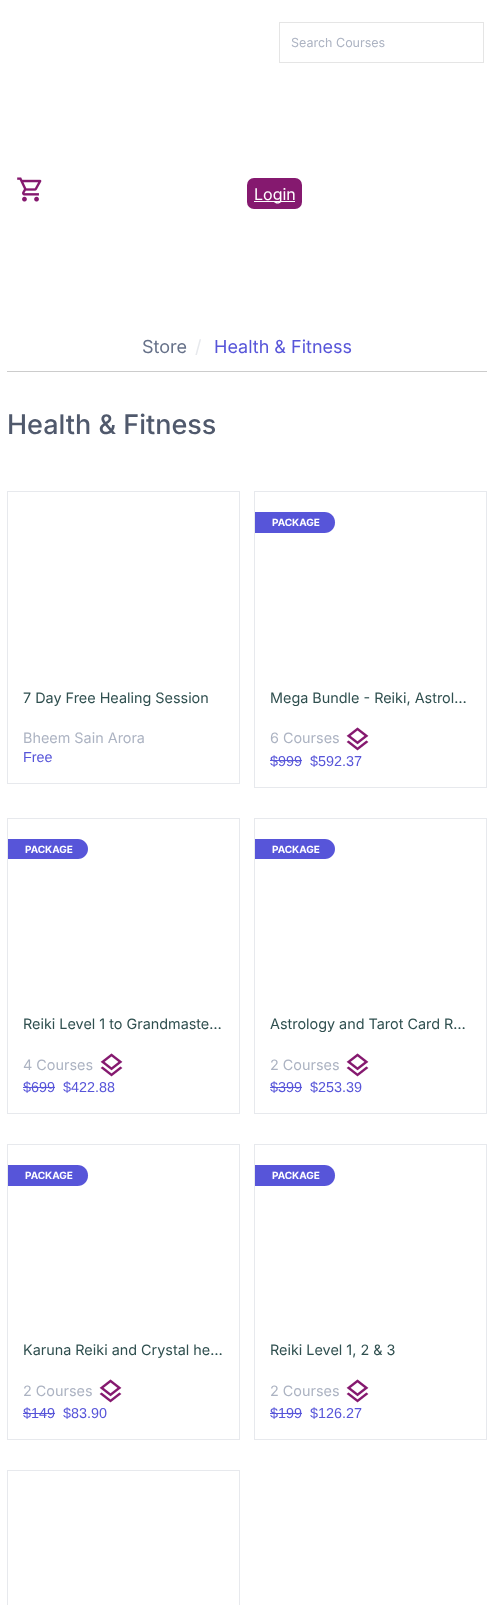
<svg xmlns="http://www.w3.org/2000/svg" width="494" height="1605">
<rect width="100%" height="100%" fill="#fff"/>
<rect x="279.5" y="22.5" width="204" height="40" fill="none" stroke="#e5e5e5"/>
<text x="291" y="47" style="font-family:Inter;font-size:12.5px;fill:#acb3c2">Search Courses</text>
<image x="17" y="177" width="25" height="25" href="media/1.png"/>
<rect x="247" y="178" width="55" height="31" rx="7" fill="#85196f"/>
<rect x="254" y="201" width="41" height="1" fill="#fff"/>
<text x="254" y="200" style="font-family:Inter;font-size:16px;fill:#fff">Login</text>
<rect x="7" y="371" width="480" height="1" fill="#ccc"/>
<text x="142" y="353" style="font-family:Inter;font-size:18px;fill:#667189">Store</text>
<text x="195" y="353" style="font-family:Inter;font-size:18px;fill:#e7e9ed">/</text>
<text x="214" y="353" style="font-family:Inter;font-size:18px;fill:#5755d9">Health &amp; Fitness</text>
<text x="7" y="434" style="font-family:Inter;font-size:27px;font-weight:500;fill:#50596c">Health &amp; Fitness</text>
<rect x="7.5" y="491.5" width="232" height="292" fill="none" stroke="#e7e9ed"/>
<text x="23" y="703" style="font-family:Inter;font-size:14.4px;fill:#2f4f4f">7 Day Free Healing Session</text>
<text x="23" y="743" style="font-family:Inter;font-size:14.4px;fill:#acb3c2">Bheem Sain Arora</text>
<text x="23" y="762" style="font-family:Liberation Sans;font-size:14.4px;fill:#5755d9">Free</text>
<rect x="254.5" y="491.5" width="232" height="296" fill="none" stroke="#e7e9ed"/>
<path d="M255 512h69.5c6 0 10.5 4.5 10.5 10.5c0 6-4.5 10.5-10.5 10.5h-69.5z" fill="#5755d9"/>
<text x="272" y="526" style="font-family:Inter;font-size:10px;font-weight:bold;fill:#fff">PACKAGE</text>
<text x="270" y="703" style="font-family:Inter;font-size:14.4px;fill:#2f4f4f">Mega Bundle - Reiki, Astrol…</text>
<text x="270" y="743" style="font-family:Inter;font-size:14.4px;fill:#acb3c2">6 Courses</text>
<image x="346" y="727" width="23" height="24" href="media/2.png"/>
<text x="270" y="766" style="font-family:Liberation Sans;font-size:14.4px;fill:#5755d9">$999</text>
<rect x="270" y="760" width="32" height="1" fill="#5755d9"/>
<text x="310" y="766" style="font-family:Liberation Sans;font-size:14.4px;fill:#5755d9">$592.37</text>
<rect x="7.5" y="818.5" width="232" height="295" fill="none" stroke="#e7e9ed"/>
<path d="M8 839h70c5.5 0 10 4.5 10 10c0 5.5-4.5 10-10 10h-70z" fill="#5755d9"/>
<text x="25" y="853" style="font-family:Inter;font-size:10px;font-weight:bold;fill:#fff">PACKAGE</text>
<text x="23" y="1029" style="font-family:Inter;font-size:14.4px;fill:#2f4f4f">Reiki Level 1 to Grandmaste…</text>
<text x="23" y="1070" style="font-family:Inter;font-size:14.4px;fill:#acb3c2">4 Courses</text>
<image x="100" y="1053" width="23" height="24" href="media/2.png"/>
<text x="23" y="1092" style="font-family:Liberation Sans;font-size:14.4px;fill:#5755d9">$699</text>
<rect x="23" y="1087" width="32" height="1" fill="#5755d9"/>
<text x="63" y="1092" style="font-family:Liberation Sans;font-size:14.4px;fill:#5755d9">$422.88</text>
<rect x="254.5" y="818.5" width="232" height="295" fill="none" stroke="#e7e9ed"/>
<path d="M255 839h70c5.5 0 10 4.5 10 10c0 5.5-4.5 10-10 10h-70z" fill="#5755d9"/>
<text x="272" y="853" style="font-family:Inter;font-size:10px;font-weight:bold;fill:#fff">PACKAGE</text>
<text x="270" y="1029" style="font-family:Inter;font-size:14.4px;fill:#2f4f4f">Astrology and Tarot Card R…</text>
<text x="270" y="1070" style="font-family:Inter;font-size:14.4px;fill:#acb3c2">2 Courses</text>
<image x="346" y="1053" width="23" height="24" href="media/2.png"/>
<text x="270" y="1092" style="font-family:Liberation Sans;font-size:14.4px;fill:#5755d9">$399</text>
<rect x="270" y="1087" width="32" height="1" fill="#5755d9"/>
<text x="310" y="1092" style="font-family:Liberation Sans;font-size:14.4px;fill:#5755d9">$253.39</text>
<rect x="7.5" y="1144.5" width="232" height="295" fill="none" stroke="#e7e9ed"/>
<path d="M8 1165h69.5c6 0 10.5 4.5 10.5 10.5c0 6-4.5 10.5-10.5 10.5h-69.5z" fill="#5755d9"/>
<text x="25" y="1179" style="font-family:Inter;font-size:10px;font-weight:bold;fill:#fff">PACKAGE</text>
<text x="23" y="1355" style="font-family:Inter;font-size:14.4px;fill:#2f4f4f">Karuna Reiki and Crystal he…</text>
<text x="23" y="1396" style="font-family:Inter;font-size:14.4px;fill:#acb3c2">2 Courses</text>
<image x="99" y="1379" width="23" height="24" href="media/2.png"/>
<text x="23" y="1418" style="font-family:Liberation Sans;font-size:14.4px;fill:#5755d9">$149</text>
<rect x="23" y="1413" width="32" height="1" fill="#5755d9"/>
<text x="63" y="1418" style="font-family:Liberation Sans;font-size:14.4px;fill:#5755d9">$83.90</text>
<rect x="254.5" y="1144.5" width="232" height="295" fill="none" stroke="#e7e9ed"/>
<path d="M255 1165h69.5c6 0 10.5 4.5 10.5 10.5c0 6-4.5 10.5-10.5 10.5h-69.5z" fill="#5755d9"/>
<text x="272" y="1179" style="font-family:Inter;font-size:10px;font-weight:bold;fill:#fff">PACKAGE</text>
<text x="270" y="1355" style="font-family:Inter;font-size:14.4px;fill:#2f4f4f">Reiki Level 1, 2 &amp; 3</text>
<text x="270" y="1396" style="font-family:Inter;font-size:14.4px;fill:#acb3c2">2 Courses</text>
<image x="346" y="1379" width="23" height="24" href="media/2.png"/>
<text x="270" y="1418" style="font-family:Liberation Sans;font-size:14.4px;fill:#5755d9">$199</text>
<rect x="270" y="1413" width="32" height="1" fill="#5755d9"/>
<text x="310" y="1418" style="font-family:Liberation Sans;font-size:14.4px;fill:#5755d9">$126.27</text>
<rect x="7.5" y="1470.5" width="232" height="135" fill="none" stroke="#e7e9ed"/>
</svg>
